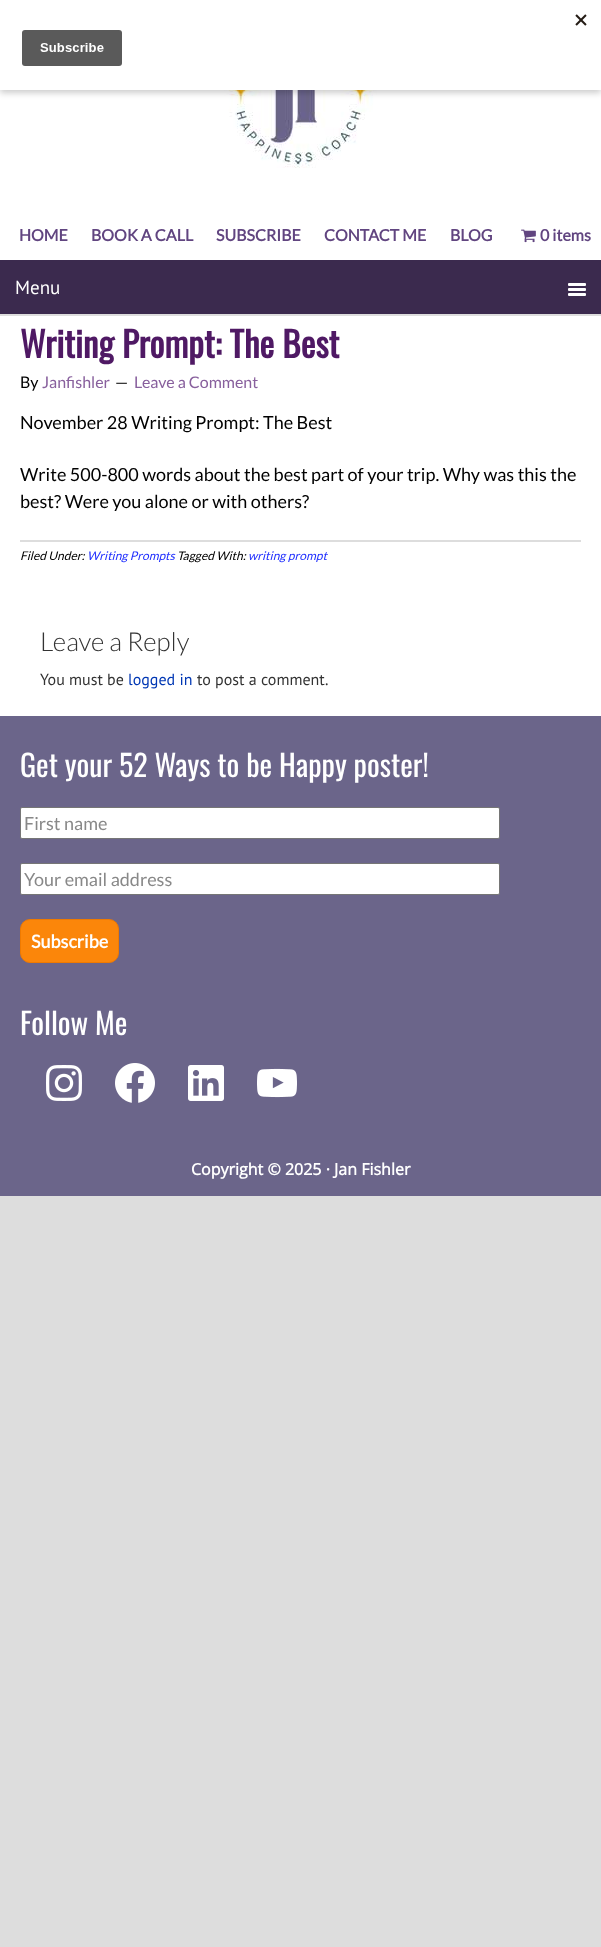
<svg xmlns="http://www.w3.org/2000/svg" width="601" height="1947">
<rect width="100%" height="100%" fill="#ddd"/>
<rect y="90" width="601" height="626" fill="#fff"/>
<image x="224" y="90" width="153" height="78" href="media/2.png"/>
<rect y="3" width="601" height="90" fill="#00000033" filter="blur(3px)"/>
<rect width="601" height="90" fill="#fff"/>
<image x="22" y="14" width="565" height="52" href="media/1.png"/>
<text x="19" y="241" style="font-family:Lato;font-size:16px;font-weight:bold;fill:#614580">HOME</text>
<text x="91" y="241" style="font-family:Lato;font-size:16px;font-weight:bold;fill:#614580">BOOK A CALL</text>
<text x="216" y="241" style="font-family:Lato;font-size:16px;font-weight:bold;fill:#614580">SUBSCRIBE</text>
<text x="324" y="241" style="font-family:Lato;font-size:16px;font-weight:bold;fill:#614580">CONTACT ME</text>
<text x="450" y="241" style="font-family:Lato;font-size:16px;font-weight:bold;fill:#614580">BLOG</text>
<image x="521" y="229" width="15" height="14" href="media/3.png"/>
<text x="540" y="241" style="font-family:Lato;font-size:16px;font-weight:bold;fill:#614580">0 items</text>
<rect y="260" width="601" height="54" fill="#3b2a4e"/>
<rect y="314" width="601" height="2" fill="#ddd"/>
<text x="15" y="294" style="font-family:PT Sans;font-size:19px;fill:#fff">Menu</text>
<rect x="568" y="283" width="18" height="3" rx="1" fill="#fff"/>
<rect x="568" y="288" width="18" height="3" rx="1" fill="#fff"/>
<rect x="568" y="293" width="18" height="3" rx="1" fill="#fff"/>
<text x="20" y="358" style="font-family:Oswald;font-size:35px;font-weight:bold;fill:#4f1964">Writing Prompt: The Best</text>
<text x="20" y="388" style="font-family:Lato;font-size:16px;fill:#000">By</text>
<text x="42" y="388" style="font-family:Lato;font-size:16px;fill:#88609d">Janfishler</text>
<text x="115" y="388" style="font-family:Lato;font-size:16px;fill:#000">—</text>
<text x="134" y="388" style="font-family:Lato;font-size:16px;fill:#88609d">Leave a Comment</text>
<text x="20" y="429" style="font-family:Lato;font-size:18px;fill:#000">November 28 Writing Prompt: The Best</text>
<text x="20" y="481" style="font-family:Lato;font-size:18px;fill:#000">Write 500-800 words about the best part of your trip. Why was this the</text>
<text x="20" y="508" style="font-family:Lato;font-size:18px;fill:#000">best? Were you alone or with others?</text>
<rect x="20" y="540" width="561" height="2" fill="#ddd"/>
<text x="20" y="560" style="font-family:Lato;font-size:12px;font-style:italic;fill:#000">Filed Under:</text>
<text x="87" y="560" style="font-family:Lato;font-size:12px;font-style:italic;fill:#2130fe">Writing Prompts</text>
<text x="177" y="560" style="font-family:Lato;font-size:12px;font-style:italic;fill:#000">Tagged With:</text>
<text x="248" y="560" style="font-family:Lato;font-size:12px;font-style:italic;fill:#2130fe">writing prompt</text>
<text x="40" y="651" style="font-family:Lato;font-size:26px;font-weight:300;fill:#333">Leave a Reply</text>
<text x="40" y="685" style="font-family:PT Sans;font-size:16px;fill:#333">You must be</text>
<text x="128" y="685" style="font-family:PT Sans;font-size:16px;fill:#0037b4">logged in</text>
<text x="197" y="685" style="font-family:PT Sans;font-size:16px;fill:#333">to post a comment.</text>
<rect y="716" width="601" height="480" fill="#6b658a"/>
<text x="20" y="777" style="font-family:Oswald;font-size:30px;fill:#fff">Get your 52 Ways to be Happy poster!</text>
<rect x="20.5" y="807.5" width="479" height="31" rx="1.5" fill="#fff" stroke="#767676"/>
<text x="24" y="830" style="font-family:Lato;font-size:18px;fill:#888">First name</text>
<rect x="20.5" y="863.5" width="479" height="31" rx="1.5" fill="#fff" stroke="#767676"/>
<text x="24" y="886" style="font-family:Lato;font-size:18px;fill:#888">Your email address</text>
<rect x="20.5" y="919.5" width="98" height="43" rx="9.5" fill="#fb860a" stroke="#ef7a00"/>
<text x="31" y="948" style="font-family:Lato;font-size:18px;font-weight:bold;fill:#fff">Subscribe</text>
<text x="20" y="1035" style="font-family:Oswald;font-size:30px;fill:#fff">Follow Me</text>
<image x="46" y="1065" width="36" height="36" href="media/4.png"/>
<image x="115" y="1063" width="40" height="40" href="media/5.png"/>
<image x="188" y="1065" width="36" height="36" href="media/6.png"/>
<image x="257" y="1068" width="40" height="30" href="media/7.png"/>
<text x="191" y="1175" style="font-family:Open Sans;font-size:16px;font-weight:bold;fill:#fff">Copyright © 2025 · Jan Fishler</text>
</svg>
